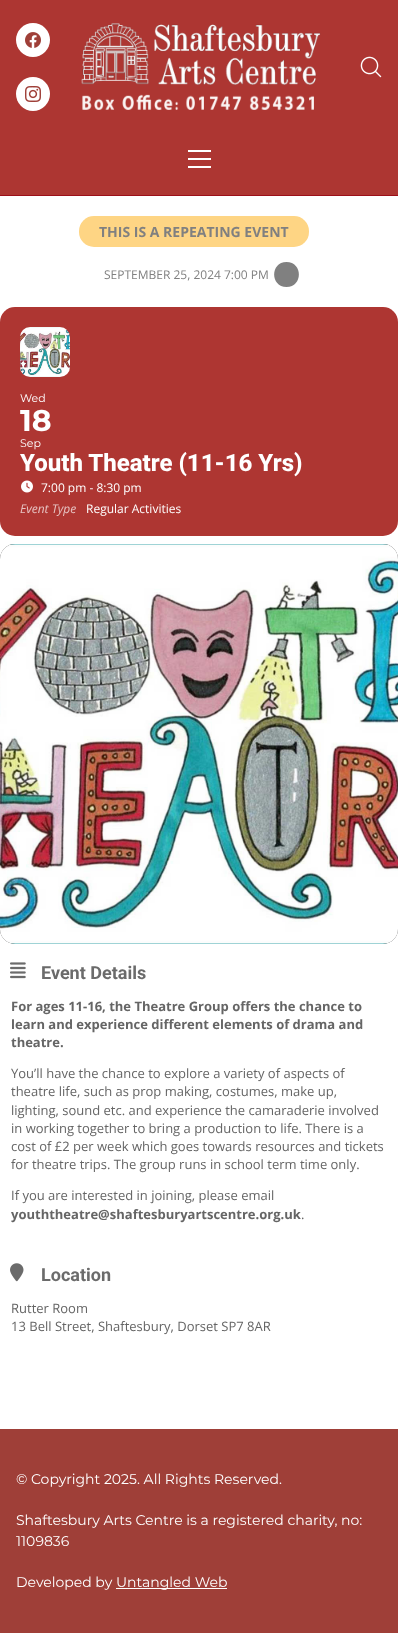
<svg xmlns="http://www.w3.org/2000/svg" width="398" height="1633">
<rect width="100%" height="100%" fill="#fff"/>
<rect width="398" height="195" fill="#ad3632"/>
<rect y="195" width="398" height="1" fill="#9c0f18"/>
<circle cx="33" cy="40" r="17" fill="#fff"/>
<image x="25" y="32" width="16" height="16" href="media/1.png"/>
<circle cx="33" cy="94" r="17" fill="#fff"/>
<image x="25" y="86" width="16" height="16" href="media/2.png"/>
<image x="81" y="23" width="240" height="87" href="media/3.png"/>
<image x="360" y="56" width="22" height="22" href="media/4.png"/>
<rect x="188" y="150" width="23" height="2" fill="#fff"/>
<rect x="188" y="158" width="23" height="2" fill="#fff"/>
<rect x="188" y="166" width="23" height="2" fill="#fff"/>
<rect x="79" y="216" width="230" height="31" rx="15" fill="#fed584"/>
<text x="99" y="237" style="font-family:Open Sans;font-size:14px;font-weight:bold;fill:#808080">THIS IS A REPEATING EVENT</text>
<text x="104" y="279" style="font-family:Open Sans;font-size:12px;fill:#808080">SEPTEMBER 25, 2024 7:00 PM</text>
<path d="M286.5 262c16.5 0 16.5 25 0 25c-16.5 0-16.5-25 0-25z" fill="#808080"/>
<rect y="307" width="398" height="229" rx="15" fill="#ae3632"/>
<image x="20" y="327" width="50" height="50" href="media/5.png"/>
<text x="20" y="402" style="font-family:Montserrat;font-size:11px;fill:#fff">Wed</text>
<text x="20" y="431" style="font-family:Montserrat;font-size:30px;font-weight:bold;fill:#fff">18</text>
<text x="20" y="447" style="font-family:Montserrat;font-size:11px;fill:#fff">Sep</text>
<text x="20" y="471" style="font-family:Roboto;font-size:24px;font-weight:800;fill:#fff">Youth Theatre (11-16 Yrs)</text>
<image x="21" y="480" width="12" height="13" href="media/6.png"/>
<text x="41" y="492" style="font-family:Open Sans;font-size:12px;fill:#fff">7:00 pm - 8:30 pm</text>
<text x="20" y="513" style="font-family:Open Sans;font-size:12px;font-style:italic;fill:#e7c3c2">Event Type</text>
<text x="86" y="513" style="font-family:Open Sans;font-size:12px;fill:#fff">Regular Activities</text>
<rect y="544" width="398" height="400" rx="15" fill="#333"/>
<image x="0" y="544" width="398" height="400" href="media/7.png"/>
<image x="10" y="962" width="16" height="17" href="media/8.png"/>
<text x="41" y="979" style="font-family:Roboto;font-size:18px;font-weight:bold;fill:#6b6b6b">Event Details</text>
<text x="11" y="1011" style="font-family:Open Sans;font-size:13px;font-weight:bold;fill:#656565">For ages 11-16, the Theatre Group offers the chance to</text>
<text x="11" y="1029" style="font-family:Open Sans;font-size:13px;font-weight:bold;fill:#656565">learn and experience different elements of drama and</text>
<text x="11" y="1047" style="font-family:Open Sans;font-size:13px;font-weight:bold;fill:#656565">theatre.</text>
<text x="11" y="1078" style="font-family:Open Sans;font-size:13px;fill:#656565">You’ll have the chance to explore a variety of aspects of</text>
<text x="11" y="1096" style="font-family:Open Sans;font-size:13px;fill:#656565">theatre life, such as prop making, costumes, make up,</text>
<text x="11" y="1115" style="font-family:Open Sans;font-size:13px;fill:#656565">lighting, sound etc. and experience the camaraderie involved</text>
<text x="11" y="1133" style="font-family:Open Sans;font-size:13px;fill:#656565">in working together to bring a production to life. There is a</text>
<text x="11" y="1151" style="font-family:Open Sans;font-size:13px;fill:#656565">cost of £2 per week which goes towards resources and tickets</text>
<text x="11" y="1169" style="font-family:Open Sans;font-size:13px;fill:#656565">for theatre trips. The group runs in school term time only.</text>
<text x="11" y="1200" style="font-family:Open Sans;font-size:13px;fill:#656565">If you are interested in joining, please email</text>
<text x="11" y="1219" style="font-family:Open Sans;font-size:13px;font-weight:bold;fill:#656565">youththeatre@shaftesburyartscentre.org.uk</text>
<text x="301" y="1219" style="font-family:Open Sans;font-size:13px;fill:#656565">.</text>
<image x="10" y="1263" width="14" height="19" href="media/9.png"/>
<text x="41" y="1281" style="font-family:Roboto;font-size:18px;font-weight:bold;fill:#6b6b6b">Location</text>
<text x="11" y="1313" style="font-family:Open Sans;font-size:13px;fill:#656565">Rutter Room</text>
<text x="11" y="1331" style="font-family:Open Sans;font-size:13px;fill:#656565">13 Bell Street, Shaftesbury, Dorset SP7 8AR</text>
<rect y="1429" width="398" height="204" fill="#9f3f38"/>
<text x="16" y="1484" style="font-family:Montserrat;font-size:14px;fill:#fff">© Copyright 2025. All Rights Reserved.</text>
<text x="16" y="1525" style="font-family:Montserrat;font-size:14px;fill:#fff">Shaftesbury Arts Centre is a registered charity, no:</text>
<text x="16" y="1546" style="font-family:Montserrat;font-size:14px;fill:#fff">1109836</text>
<text x="16" y="1587" style="font-family:Montserrat;font-size:14px;fill:#fff">Developed by</text>
<rect x="116" y="1588" width="111" height="1" fill="#fff"/>
<text x="116" y="1587" style="font-family:Montserrat;font-size:14px;fill:#fff">Untangled Web</text>
</svg>
